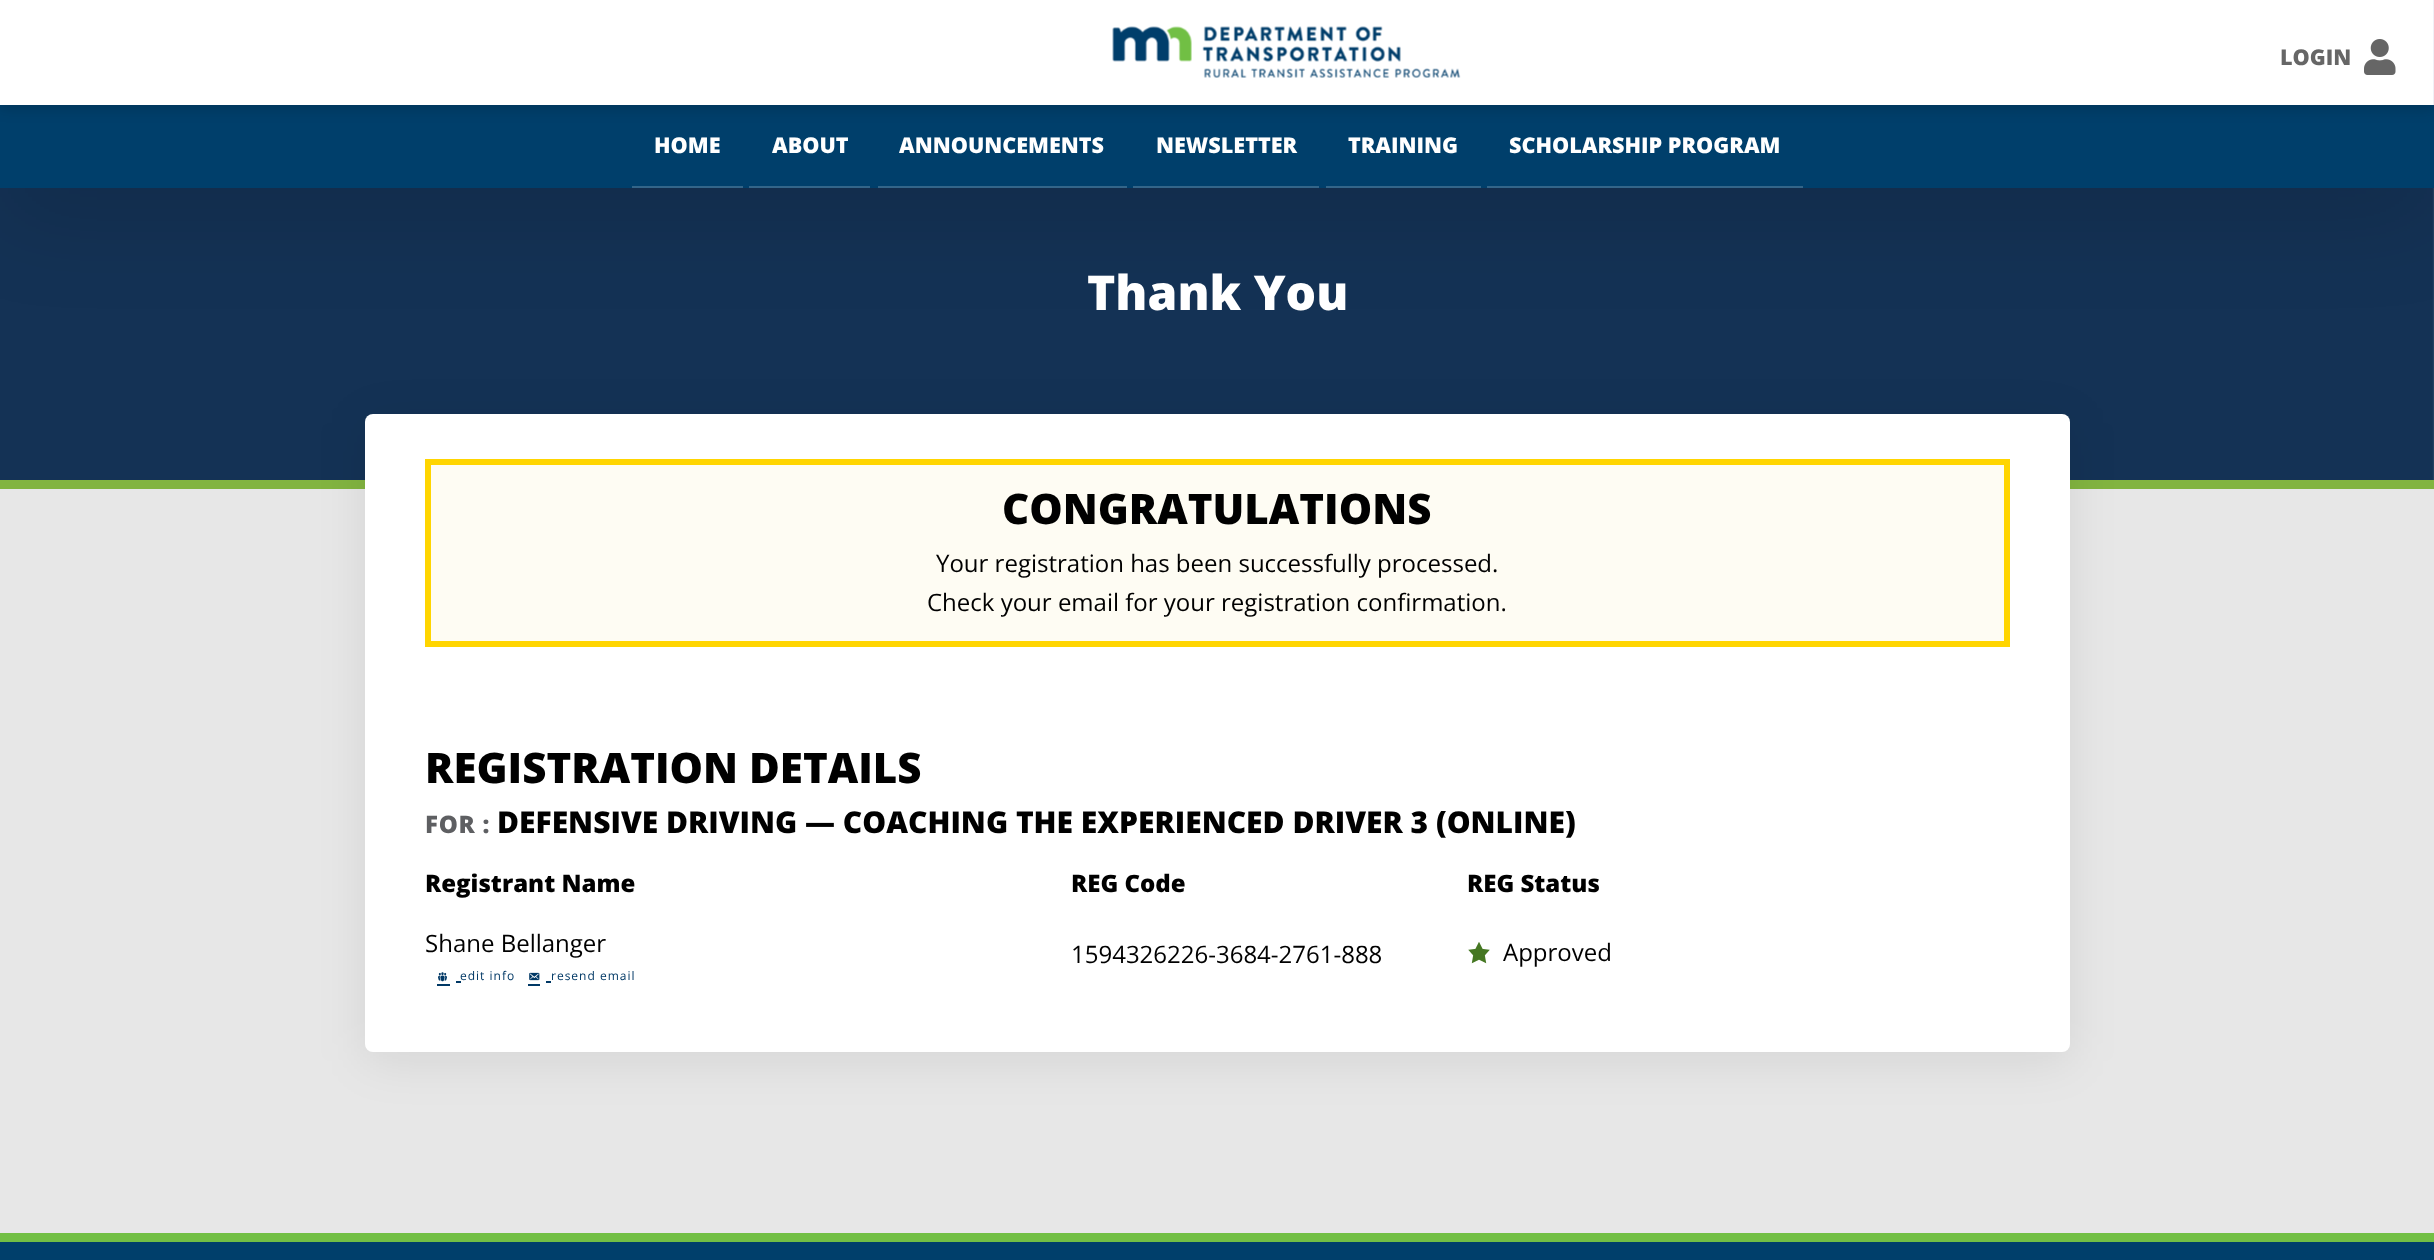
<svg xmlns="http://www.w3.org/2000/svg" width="2434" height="1260">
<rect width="100%" height="100%" fill="#e7e7e7"/>
<image x="0" y="188" width="2434" height="292" href="media/3.png"/>
<rect y="129" width="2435" height="83" fill="#00000026" filter="blur(48px)"/>
<rect y="105" width="2434" height="83" fill="#003f6b"/>
<rect x="-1" y="-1" width="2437" height="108" fill="#00000033" filter="blur(7.5px)"/>
<rect width="2433" height="105" fill="#fff"/>
<rect x="2433" width="1" height="105" fill="#f0f0f6"/>
<image x="1112" y="26" width="349" height="52" href="media/1.png"/>
<text x="2280" y="65" style="font-family:Open Sans;font-size:21.6px;font-weight:800;fill:#666">LOGIN</text>
<image x="2364" y="39" width="32" height="36" href="media/2.png"/>
<rect x="632" y="186" width="111" height="2" fill="#336589"/>
<text x="654" y="153" style="font-family:Open Sans;font-size:21.6px;font-weight:800;fill:#fff">HOME</text>
<rect x="749" y="186" width="121" height="2" fill="#336589"/>
<text x="772" y="153" style="font-family:Open Sans;font-size:21.6px;font-weight:800;fill:#fff">ABOUT</text>
<rect x="878" y="186" width="249" height="2" fill="#336589"/>
<text x="899" y="153" style="font-family:Open Sans;font-size:21.6px;font-weight:800;fill:#fff">ANNOUNCEMENTS</text>
<rect x="1133" y="186" width="186" height="2" fill="#336589"/>
<text x="1156" y="153" style="font-family:Open Sans;font-size:21.6px;font-weight:800;fill:#fff">NEWSLETTER</text>
<rect x="1326" y="186" width="155" height="2" fill="#336589"/>
<text x="1348" y="153" style="font-family:Open Sans;font-size:21.6px;font-weight:800;fill:#fff">TRAINING</text>
<rect x="1487" y="186" width="316" height="2" fill="#336589"/>
<text x="1509" y="153" style="font-family:Open Sans;font-size:21.6px;font-weight:800;fill:#fff">SCHOLARSHIP PROGRAM</text>
<rect y="480" width="2434" height="9" fill="#82b440"/>
<text x="1087" y="310" style="font-family:Open Sans;font-size:48px;font-weight:800;fill:#fff">Thank You</text>
<rect x="365" y="423" width="1705" height="638" rx="8" fill="#00000014" filter="blur(24px)"/>
<rect x="365" y="414" width="1705" height="638" rx="8" fill="#fff"/>
<rect x="428" y="462" width="1579" height="182" fill="#fefcf3" stroke="#ffd500" stroke-width="6"/>
<text x="1002" y="524" style="font-family:Open Sans;font-size:42px;font-weight:800;fill:#000">CONGRATULATIONS</text>
<text x="936" y="572" style="font-family:Open Sans;font-size:24px;fill:#000">Your registration has been successfully processed.</text>
<text x="927" y="611" style="font-family:Open Sans;font-size:24px;fill:#000">Check your email for your registration confirmation.</text>
<text x="425" y="783" style="font-family:Open Sans;font-size:42px;font-weight:800;fill:#000">REGISTRATION DETAILS</text>
<text x="425" y="833" style="font-family:Open Sans;font-size:24px;font-weight:800;letter-spacing:0.75px;fill:#5e5f62">FOR :</text>
<text x="497" y="833" style="font-family:Open Sans;font-size:30px;font-weight:800;fill:#000">DEFENSIVE DRIVING — COACHING THE EXPERIENCED DRIVER 3 (ONLINE)</text>
<text x="425" y="892" style="font-family:Open Sans;font-size:24px;font-weight:800;fill:#000">Registrant Name</text>
<text x="1071" y="892" style="font-family:Open Sans;font-size:24px;font-weight:800;fill:#000">REG Code</text>
<text x="1467" y="892" style="font-family:Open Sans;font-size:24px;font-weight:800;fill:#000">REG Status</text>
<text x="425" y="952" style="font-family:Open Sans;font-size:24px;fill:#000">Shane Bellanger</text>
<rect x="437" y="984" width="13" height="2" fill="#003865"/>
<image x="438" y="972" width="9" height="10" href="media/4.png"/>
<rect x="456" y="981" width="5" height="2" fill="#003865"/>
<text x="460" y="980" style="font-family:Open Sans;font-size:12px;letter-spacing:1px;fill:#003865">edit info</text>
<rect x="528" y="984" width="12" height="2" fill="#003865"/>
<image x="529" y="972" width="11" height="9" href="media/5.png"/>
<rect x="546" y="981" width="5" height="2" fill="#003865"/>
<text x="551" y="980" style="font-family:Open Sans;font-size:12px;letter-spacing:1px;fill:#003865">resend email</text>
<text x="1071" y="963" style="font-family:Open Sans;font-size:24px;fill:#000">1594326226-3684-2761-888</text>
<image x="1468" y="942" width="22" height="22" href="media/6.png"/>
<text x="1503" y="961" style="font-family:Open Sans;font-size:24px;fill:#000">Approved</text>
<rect y="1242" width="2434" height="18" fill="#003f6b"/>
<rect y="1233" width="2434" height="9" fill="#72bf44"/>
</svg>
